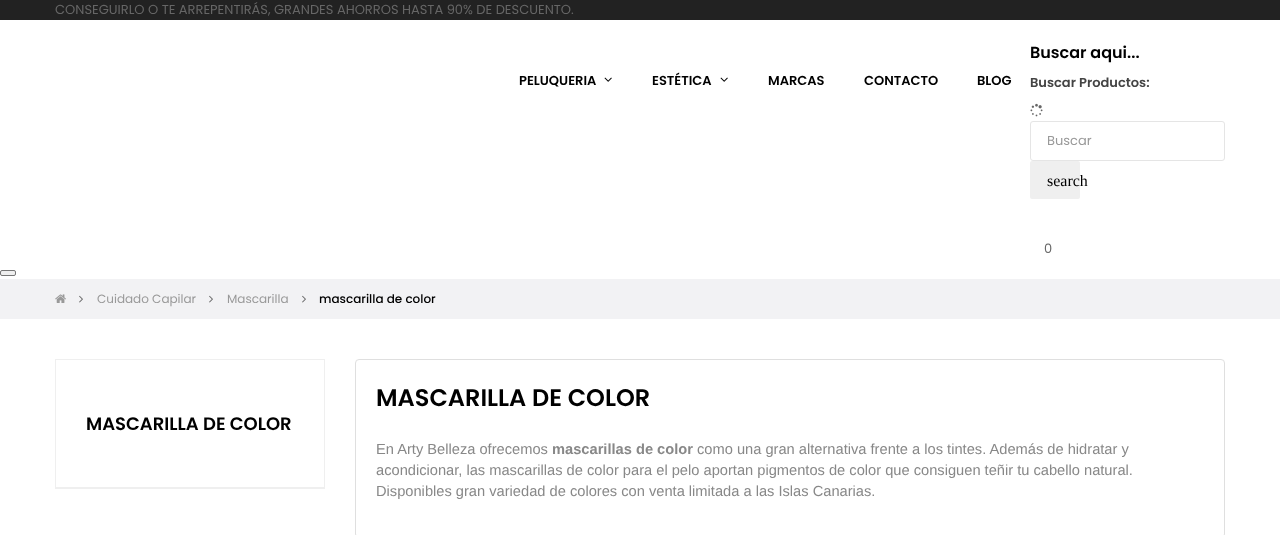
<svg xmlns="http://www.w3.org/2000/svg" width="1280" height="535">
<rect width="100%" height="100%" fill="#fff"/>
<rect width="1280" height="20" fill="#222"/>
<text x="55" y="14" style="font-family:Poppins;font-size:13px;fill:#666">CONSEGUIRLO O TE ARREPENTIRÁS, GRANDES AHORROS HASTA 90% DE DESCUENTO.</text>
<text x="519" y="85" style="font-family:Poppins;font-size:13px;font-weight:600;fill:#000">PELUQUERIA</text>
<image x="604" y="77" width="8" height="5" href="media/1.png"/>
<text x="652" y="85" style="font-family:Poppins;font-size:13px;font-weight:600;fill:#000">ESTÉTICA</text>
<image x="720" y="77" width="8" height="5" href="media/1.png"/>
<text x="768" y="85" style="font-family:Poppins;font-size:13px;font-weight:600;fill:#000">MARCAS</text>
<text x="864" y="85" style="font-family:Poppins;font-size:13px;font-weight:600;fill:#000">CONTACTO</text>
<text x="977" y="85" style="font-family:Poppins;font-size:13px;font-weight:600;fill:#000">BLOG</text>
<text x="1030" y="58" style="font-family:Poppins;font-size:16px;font-weight:600;fill:#000">Buscar aqui...</text>
<text x="1030" y="87" style="font-family:Poppins;font-size:13px;font-weight:600;fill:#444">Buscar Productos:</text>
<image x="1030" y="103" width="13" height="14" href="media/2.png"/>
<rect x="1030.5" y="121.5" width="194" height="39" rx="2.5" fill="none" stroke="#e5e5e5"/>
<text x="1047" y="145" style="font-family:Poppins;font-size:13px;fill:#999">Buscar</text>
<rect x="1030" y="161" width="50" height="38" rx="2" fill="#efefef"/>
<text x="1047" y="186" style="font-family:Liberation Serif;font-size:16px;fill:#000">search</text>
<text x="1044" y="253" style="font-family:Poppins;font-size:13px;fill:#666">0</text>
<rect x="0.5" y="270.5" width="15" height="5" rx="1.5" fill="#efefef" stroke="#767676"/>
<rect y="279" width="1280" height="40" fill="#f2f2f4"/>
<image x="55" y="294" width="11" height="9" href="media/3.png"/>
<image x="79" y="295" width="4" height="8" href="media/4.png"/>
<text x="97" y="303" style="font-family:Poppins;font-size:12px;fill:#999">Cuidado Capilar</text>
<image x="209" y="295" width="4" height="8" href="media/4.png"/>
<text x="227" y="303" style="font-family:Poppins;font-size:12px;fill:#999">Mascarilla</text>
<image x="302" y="295" width="4" height="8" href="media/4.png"/>
<text x="319" y="303" style="font-family:Poppins;font-size:12px;font-weight:500;fill:#000">mascarilla de color</text>
<rect x="55" y="359" width="270" height="1" fill="#efefef"/>
<rect x="324" y="359" width="1" height="128" fill="#efefef"/>
<rect x="55" y="359" width="1" height="128" fill="#efefef"/>
<text x="86" y="430" style="font-family:Poppins;font-size:18px;font-weight:600;fill:#000">MASCARILLA DE COLOR</text>
<rect x="55" y="487" width="270" height="2" fill="#efefef"/>
<rect x="355.5" y="359.5" width="869" height="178" rx="3.5" fill="none" stroke="#dfdfdf"/>
<text x="376" y="406" style="font-family:Poppins;font-size:24px;font-weight:600;fill:#000">MASCARILLA DE COLOR</text>
<text x="376" y="454" style="font-family:Liberation Sans;font-size:14.67px;fill:#888">En Arty Belleza ofrecemos</text>
<text x="552" y="454" style="font-family:Liberation Sans;font-size:14.67px;font-weight:bold;fill:#888">mascarillas de color</text>
<text x="697" y="454" style="font-family:Liberation Sans;font-size:14.67px;fill:#888">como una gran alternativa frente a los tintes. Además de hidratar y</text>
<text x="376" y="475" style="font-family:Liberation Sans;font-size:14.67px;fill:#888">acondicionar, las mascarillas de color para el pelo aportan pigmentos de color que consiguen teñir tu cabello natural.</text>
<text x="376" y="496" style="font-family:Liberation Sans;font-size:14.67px;fill:#888">Disponibles gran variedad de colores con venta limitada a las Islas Canarias.</text>
</svg>
